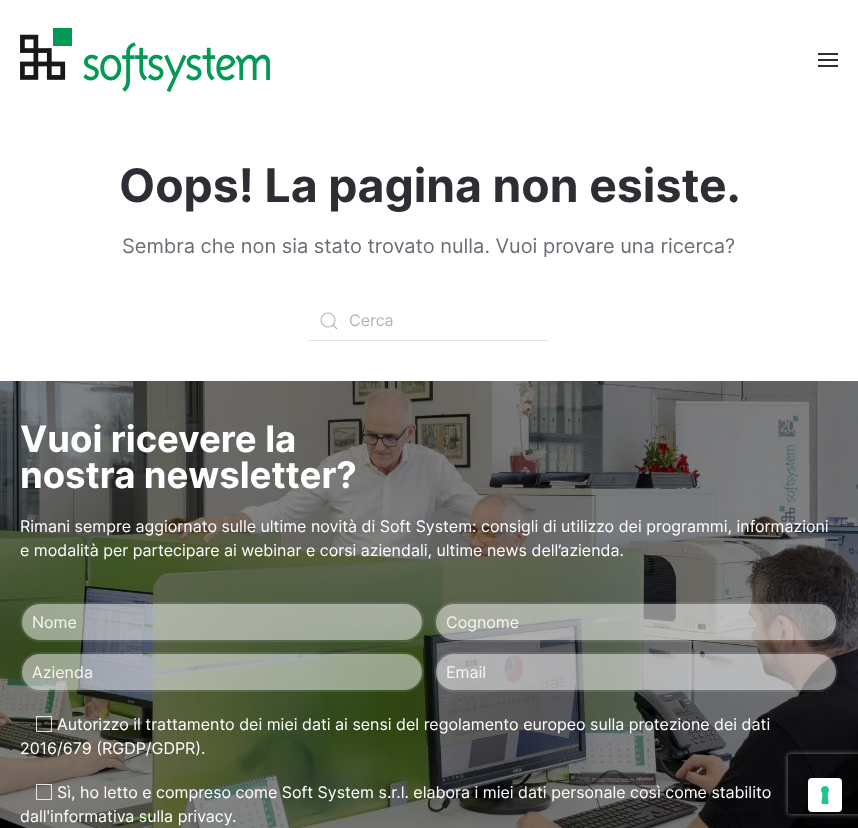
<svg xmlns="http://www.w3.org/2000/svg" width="858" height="828">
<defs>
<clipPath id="clip1"><path d="M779 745h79v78h-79zm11 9h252c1 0 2 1 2 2v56c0 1-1 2-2 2h-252c-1 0-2-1-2-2v-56c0-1 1-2 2-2z" clip-rule="evenodd"/></clipPath>
</defs>
<rect width="100%" height="100%" fill="#fff"/>
<image x="20" y="28" width="250" height="64" href="media/1.png"/>
<rect x="818" y="53" width="20" height="2" fill="#2d2e33"/>
<rect x="818" y="59" width="20" height="2" fill="#2d2e33"/>
<rect x="818" y="65" width="20" height="2" fill="#2d2e33"/>
<text x="119" y="202" style="font-family:Inter;font-size:46.25px;font-weight:bold;fill:#2d2e33">Oops! La pagina non esiste.</text>
<text x="122" y="253" style="font-family:Inter;font-size:20px;fill:#6c6d74">Sembra che non sia stato trovato nulla. Vuoi provare una ricerca?</text>
<circle cx="328" cy="320" r="7" fill="none" stroke="#b4b5ba" stroke-width="1.1"/>
<path d="M333 325l4 4z" fill="none" stroke="#b4b5ba" stroke-width="1.1"/>
<rect x="309" y="340" width="240" height="1" fill="#e5e5e7"/>
<text x="349" y="326" style="font-family:Inter;font-size:16px;fill:#b4b5ba">Cerca</text>
<image x="0" y="381" width="858" height="447" href="media/2.png"/>
<text x="20" y="452" style="font-family:Inter;font-size:36.5px;font-weight:bold;fill:#fff">Vuoi ricevere la</text>
<text x="20" y="488" style="font-family:Inter;font-size:36.5px;font-weight:bold;fill:#fff">nostra newsletter?</text>
<text x="20" y="532" style="font-family:Inter;font-size:16px;fill:#fff">Rimani sempre aggiornato sulle ultime novità di Soft System: consigli di utilizzo dei programmi, informazioni</text>
<text x="20" y="556" style="font-family:Inter;font-size:16px;fill:#fff">e modalità per partecipare ai webinar e corsi aziendali, ultime news dell’azienda.</text>
<rect x="22" y="604" width="400" height="36" rx="18" fill="#ffffff82"/>
<rect x="21" y="603" width="402" height="38" rx="19" fill="none" stroke="#ffffff1a" stroke-width="2"/>
<text x="32" y="628" style="font-family:Inter;font-size:16px;fill:#f4f5f3">Nome</text>
<rect x="436" y="604" width="400" height="36" rx="18" fill="#ffffff82"/>
<rect x="435" y="603" width="402" height="38" rx="19" fill="none" stroke="#ffffff1a" stroke-width="2"/>
<text x="446" y="628" style="font-family:Inter;font-size:16px;fill:#f4f5f3">Cognome</text>
<rect x="22" y="654" width="400" height="36" rx="18" fill="#ffffff82"/>
<rect x="21" y="653" width="402" height="38" rx="19" fill="none" stroke="#ffffff1a" stroke-width="2"/>
<text x="32" y="678" style="font-family:Inter;font-size:16px;fill:#f4f5f3">Azienda</text>
<rect x="436" y="654" width="400" height="36" rx="18" fill="#ffffff82"/>
<rect x="435" y="653" width="402" height="38" rx="19" fill="none" stroke="#ffffff1a" stroke-width="2"/>
<text x="446" y="678" style="font-family:Inter;font-size:16px;fill:#f4f5f3">Email</text>
<rect x="36.5" y="716.5" width="15" height="15" fill="none" stroke="#ffffffd6"/>
<text x="57" y="730" style="font-family:Inter;font-size:16px;fill:#fff">Autorizzo il trattamento dei miei dati ai sensi del regolamento europeo sulla protezione dei dati</text>
<text x="20" y="754" style="font-family:Inter;font-size:16px;fill:#fff">2016/679 (RGDP/GDPR).</text>
<rect x="36.5" y="784.5" width="15" height="15" fill="none" stroke="#ffffffd6"/>
<text x="57" y="798" style="font-family:Inter;font-size:16px;fill:#fff">Sì, ho letto e compreso come Soft System s.r.l. elabora i miei dati personale così come stabilito</text>
<text x="20" y="822" style="font-family:Inter;font-size:16px;fill:#fff">dall'informativa sulla privacy.</text>
<g clip-path="url(#clip1)">
<rect x="788" y="754" width="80" height="60" rx="2" fill="#808080" filter="blur(2.5px)"/>
</g>
<rect x="807.5" y="777.5" width="35" height="35" rx="4.5" fill="none" stroke="#00000026"/>
<rect x="808" y="778" width="34" height="34" rx="4" fill="#fff"/>
<image x="821" y="786" width="8" height="18" href="media/3.png"/>
</svg>
